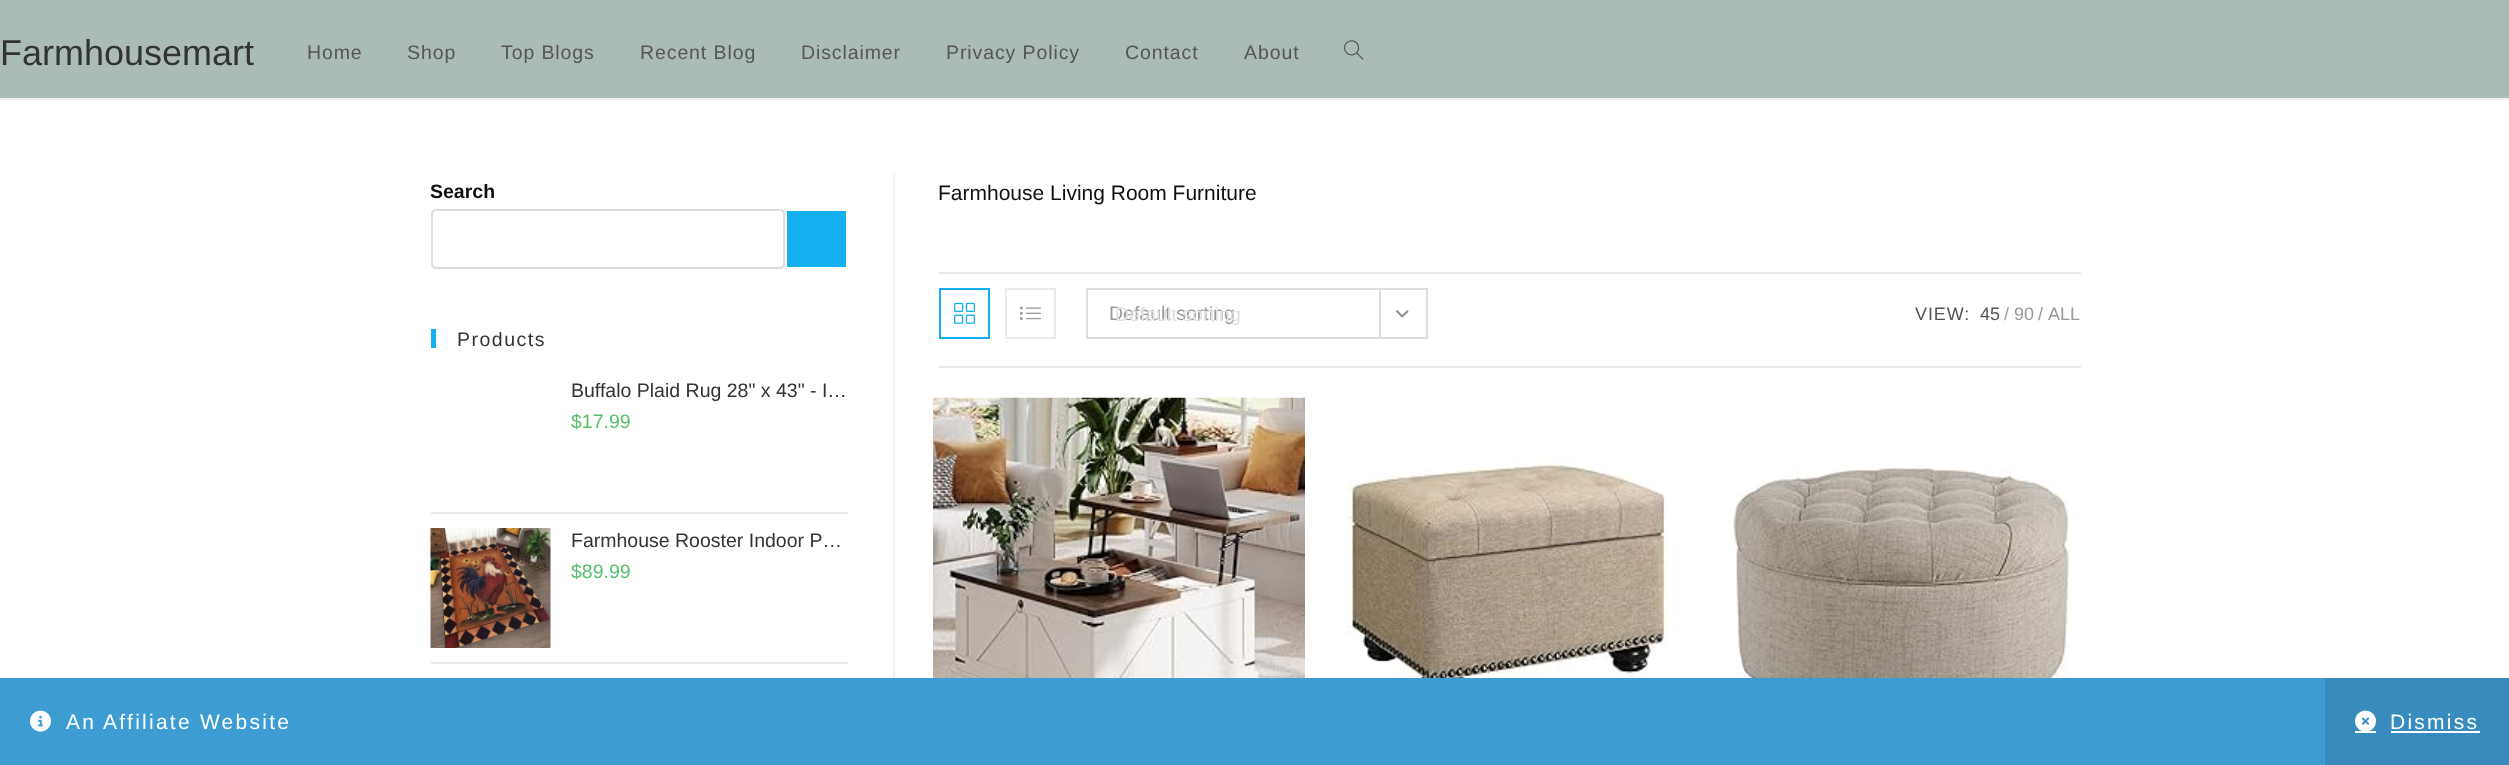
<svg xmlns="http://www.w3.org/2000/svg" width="2509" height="765">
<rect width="100%" height="100%" fill="#fff"/>
<rect width="2509" height="98" fill="#abbcb5"/>
<rect y="98" width="2509" height="2" fill="#f1f1f1"/>
<text x="0" y="65" style="font-family:Liberation Sans;font-size:36px;fill:#333">Farmhousemart</text>
<text x="307" y="59" style="font-family:Liberation Sans;font-size:19.5px;letter-spacing:0.9px;fill:#555">Home</text>
<text x="407" y="59" style="font-family:Liberation Sans;font-size:19.5px;letter-spacing:0.9px;fill:#555">Shop</text>
<text x="501" y="59" style="font-family:Liberation Sans;font-size:19.5px;letter-spacing:0.9px;fill:#555">Top Blogs</text>
<text x="640" y="59" style="font-family:Liberation Sans;font-size:19.5px;letter-spacing:0.9px;fill:#555">Recent Blog</text>
<text x="801" y="59" style="font-family:Liberation Sans;font-size:19.5px;letter-spacing:0.9px;fill:#555">Disclaimer</text>
<text x="946" y="59" style="font-family:Liberation Sans;font-size:19.5px;letter-spacing:0.9px;fill:#555">Privacy Policy</text>
<text x="1125" y="59" style="font-family:Liberation Sans;font-size:19.5px;letter-spacing:0.9px;fill:#555">Contact</text>
<text x="1244" y="59" style="font-family:Liberation Sans;font-size:19.5px;letter-spacing:0.9px;fill:#555">About</text>
<image x="1344" y="40" width="20" height="20" href="media/1.png"/>
<text x="430" y="198" style="font-family:Liberation Sans;font-size:19.5px;font-weight:bold;fill:#0f0f0f">Search</text>
<rect x="432" y="210" width="352" height="58" rx="4" fill="none" stroke="#ddd" stroke-width="2"/>
<rect x="787" y="211" width="59" height="56" fill="#13aff0"/>
<rect x="431" y="329" width="5" height="19" fill="#13aff0"/>
<text x="457" y="346" style="font-family:Liberation Sans;font-size:19.5px;letter-spacing:1.5px;fill:#333">Products</text>
<rect x="431" y="512" width="417" height="2" fill="#eaeaea"/>
<text x="571" y="397" style="font-family:Liberation Sans;font-size:19.5px;fill:#333">Buffalo Plaid Rug 28" x 43" - I…</text>
<text x="571" y="428" style="font-family:Liberation Sans;font-size:19.5px;fill:#57bf6d">$17.99</text>
<rect x="431" y="662" width="417" height="2" fill="#eaeaea"/>
<image x="430" y="528" width="121" height="120" href="media/2.png"/>
<text x="571" y="547" style="font-family:Liberation Sans;font-size:19.5px;fill:#333">Farmhouse Rooster Indoor P…</text>
<text x="571" y="578" style="font-family:Liberation Sans;font-size:19.5px;fill:#57bf6d">$89.99</text>
<rect x="893" y="174" width="2" height="504" fill="#f1f1f1"/>
<text x="938" y="200" style="font-family:Liberation Sans;font-size:21px;fill:#0f0f0f">Farmhouse Living Room Furniture</text>
<rect x="939" y="272" width="1142" height="2" fill="#eaeaea"/>
<rect x="939" y="366" width="1142" height="2" fill="#eaeaea"/>
<rect x="940" y="289" width="49" height="49" fill="none" stroke="#13aff0" stroke-width="2"/>
<image x="954" y="302" width="21" height="22" href="media/3.png"/>
<rect x="1006" y="289" width="49" height="49" fill="none" stroke="#eaeaea" stroke-width="2"/>
<image x="1020" y="306" width="21" height="14" href="media/4.png"/>
<rect x="1087" y="289" width="340" height="49" fill="none" stroke="#ddd" stroke-width="2"/>
<text x="1109" y="320" style="font-family:Liberation Sans;font-size:19.5px;fill:#999">Default sorting</text>
<rect x="1379" y="290" width="2" height="48" fill="#ddd"/>
<image x="1396" y="310" width="13" height="8" href="media/5.png"/>
<text x="1115" y="321" style="font-family:Liberation Sans;font-size:19.5px;fill:#e0e0e0">Default sorting</text>
<text x="1915" y="320" style="font-family:Liberation Sans;font-size:18px;letter-spacing:0.9px;fill:#555">VIEW:</text>
<text x="1980" y="320" style="font-family:Liberation Sans;font-size:18px;fill:#555">45</text>
<text x="2004" y="320" style="font-family:Liberation Sans;font-size:18px;fill:#999">/</text>
<text x="2014" y="320" style="font-family:Liberation Sans;font-size:18px;fill:#999">90</text>
<text x="2038" y="320" style="font-family:Liberation Sans;font-size:18px;fill:#999">/</text>
<text x="2048" y="320" style="font-family:Liberation Sans;font-size:18px;fill:#999">ALL</text>
<image x="933" y="397" width="372" height="281" href="media/6.png"/>
<image x="1346" y="459" width="323" height="219" href="media/7.png"/>
<image x="1729" y="467" width="341" height="211" href="media/8.png"/>
<rect y="678" width="2325" height="87" fill="#3d9cd2"/>
<image x="30" y="710" width="21" height="22" href="media/9.png"/>
<text x="66" y="729" style="font-family:Liberation Sans;font-size:21px;letter-spacing:2.25px;fill:#fff">An Affiliate Website</text>
<rect x="2325" y="678" width="184" height="87" fill="#378cbd"/>
<image x="2355" y="710" width="21" height="21" href="media/10.png"/>
<text x="2390" y="729" style="font-family:Liberation Sans;font-size:21px;letter-spacing:2.25px;fill:#fff">Dismiss</text>
<rect x="2391" y="731" width="89" height="2" fill="#fff"/>
<rect x="2355" y="731" width="21" height="2" fill="#fff"/>
</svg>
